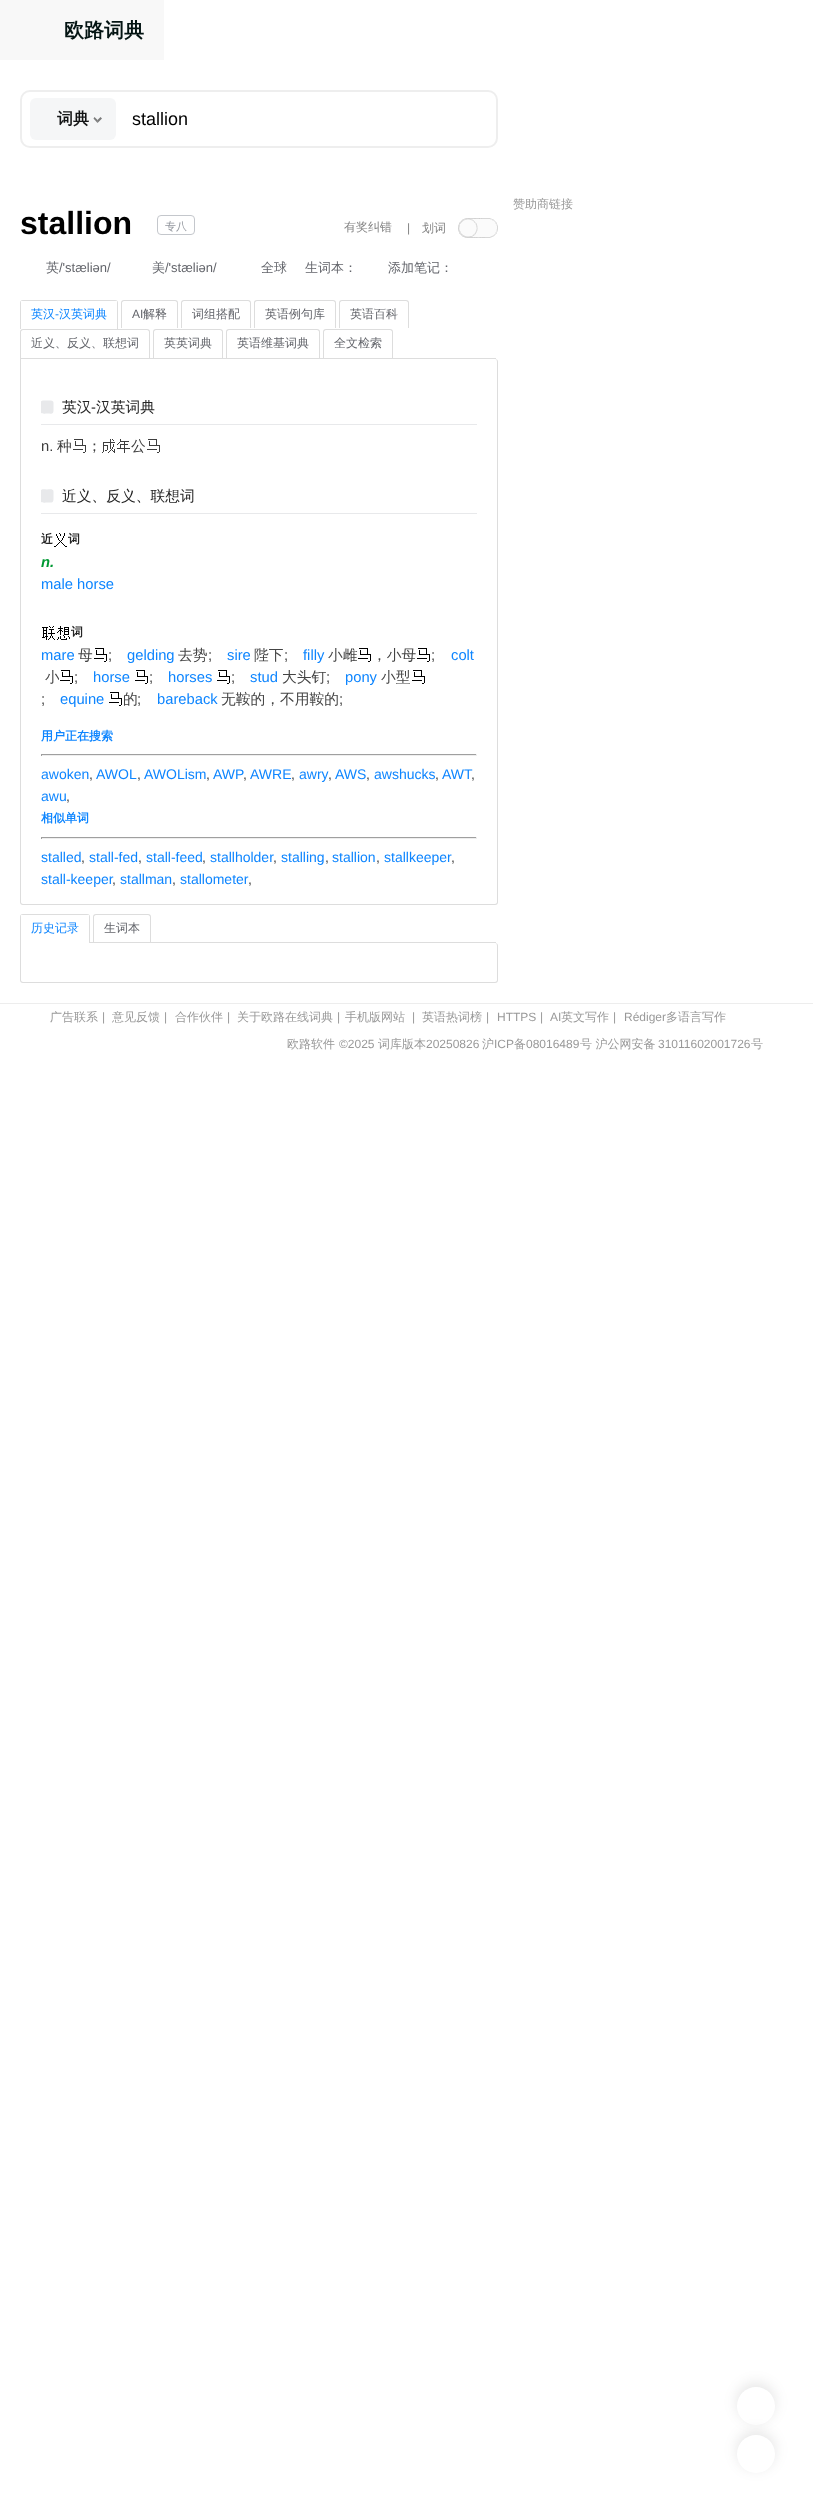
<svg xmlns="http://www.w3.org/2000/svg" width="813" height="2503">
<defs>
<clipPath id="clip1"><rect x="41" y="399" width="436" height="25"/></clipPath>
<clipPath id="clip2"><rect x="41" y="487" width="436" height="26"/></clipPath>
</defs>
<rect width="100%" height="100%" fill="#fff"/>
<rect width="164" height="60" fill="#f8f8f8"/>
<text x="64" y="37" style="font-family:WenQuanYi Zen Hei;font-size:20px;font-weight:bold;fill:#041413">欧路词典</text>
<rect x="21" y="91" width="476" height="56" rx="9" fill="none" stroke="#eee" stroke-width="2"/>
<rect x="30" y="98" width="86" height="42" rx="6" fill="#f5f6f7"/>
<text x="57" y="124" style="font-family:WenQuanYi Zen Hei;font-size:16px;font-weight:bold;fill:#131415">词典</text>
<path d="M102 118.5l-4.5 4.5v-3l3-3z" fill="#7b7b7c"/>
<path d="M97.5 123l-4-4.5l1-1.5l3 3z" fill="#00000080"/>
<text x="132" y="125" style="font-family:Liberation Sans;font-size:18px;fill:#000">stallion</text>
<text x="513" y="208" style="font-family:WenQuanYi Zen Hei;font-size:12px;font-weight:500;fill:#999">赞助商链接</text>
<rect x="737" y="2383" width="38" height="38" rx="19" fill="#0000001a" filter="blur(7px)"/>
<circle cx="756" cy="2406" r="19" fill="#fff"/>
<rect x="737" y="2431" width="38" height="38" rx="19" fill="#0000001a" filter="blur(7px)"/>
<circle cx="756" cy="2454" r="19" fill="#fff"/>
<text x="20" y="234" style="font-family:Liberation Sans;font-size:32px;font-weight:bold;fill:#000">stallion</text>
<rect x="157.5" y="215.5" width="37" height="19" rx="3.5" fill="none" stroke="#c4c7cc"/>
<text x="165" y="230" style="font-family:WenQuanYi Zen Hei;font-size:11px;font-weight:500;fill:#93979e">专八</text>
<text x="388" y="272" style="font-family:WenQuanYi Zen Hei;font-size:13px;font-weight:500;fill:#63656b">添加笔记：</text>
<rect x="404" y="261" width="1" height="1" fill="#a3a4a8"/>
<text x="344" y="231" style="font-family:WenQuanYi Zen Hei;font-size:12px;font-weight:500;fill:#838383">有奖纠错</text>
<text x="407" y="232" style="font-family:Liberation Sans;font-size:12px;fill:#838383">|</text>
<text x="422" y="232" style="font-family:WenQuanYi Zen Hei;font-size:12px;font-weight:500;fill:#838383">划词</text>
<image x="458" y="218" width="40" height="20" href="media/1.png"/>
<text x="46" y="272" style="font-family:WenQuanYi Zen Hei;font-size:13px;font-weight:500;fill:#63656b">英</text>
<text x="59" y="272" style="font-family:Liberation Sans;font-size:13px;fill:#63656b">/'stæliən/</text>
<text x="152" y="272" style="font-family:WenQuanYi Zen Hei;font-size:13px;font-weight:500;fill:#63656b">美</text>
<text x="165" y="272" style="font-family:Liberation Sans;font-size:13px;fill:#63656b">/'stæliən/</text>
<text x="261" y="272" style="font-family:WenQuanYi Zen Hei;font-size:13px;font-weight:500;fill:#63656b">全球</text>
<text x="305" y="272" style="font-family:WenQuanYi Zen Hei;font-size:13px;font-weight:500;fill:#63656b">生词本：</text>
<rect x="20" y="358" width="476" height="1" fill="#ddd"/>
<path d="M23 300h92c2 0 3 1 3 3v26h-98v-26c0-2 1-3 3-3zm0 1h92c1 0 2 1 2 2v26h-96v-26c0-1 1-2 2-2z" fill="#ddd" fill-rule="evenodd"/>
<rect x="21" y="301" width="96" height="2" fill="#fff"/>
<text x="31" y="318" style="font-family:WenQuanYi Zen Hei;font-size:12px;font-weight:500;fill:#0d85ff">英汉</text>
<text x="55" y="318" style="font-family:Liberation Sans;font-size:12px;fill:#0d85ff">-</text>
<text x="59" y="318" style="font-family:WenQuanYi Zen Hei;font-size:12px;font-weight:500;fill:#0d85ff">汉英词典</text>
<path d="M124 300h51c2 0 3 1 3 3v25h-57v-25c0-2 1-3 3-3zm0 1h51c1 0 2 1 2 2v25h-55v-25c0-1 1-2 2-2z" fill="#ddd" fill-rule="evenodd"/>
<text x="132" y="318" style="font-family:Liberation Sans;font-size:12px;fill:#63656b">AI</text>
<text x="143" y="318" style="font-family:WenQuanYi Zen Hei;font-size:12px;font-weight:500;fill:#63656b">解释</text>
<path d="M184 300h64c2 0 3 1 3 3v25h-70v-25c0-2 1-3 3-3zm0 1h64c1 0 2 1 2 2v25h-68v-25c0-1 1-2 2-2z" fill="#ddd" fill-rule="evenodd"/>
<text x="192" y="318" style="font-family:WenQuanYi Zen Hei;font-size:12px;font-weight:500;fill:#63656b">词组搭配</text>
<path d="M257 300h76c2 0 3 1 3 3v25h-82v-25c0-2 1-3 3-3zm0 1h76c1 0 2 1 2 2v25h-80v-25c0-1 1-2 2-2z" fill="#ddd" fill-rule="evenodd"/>
<text x="265" y="318" style="font-family:WenQuanYi Zen Hei;font-size:12px;font-weight:500;fill:#63656b">英语例句库</text>
<path d="M342 300h64c2 0 3 1 3 3v25h-70v-25c0-2 1-3 3-3zm0 1h64c1 0 2 1 2 2v25h-68v-25c0-1 1-2 2-2z" fill="#ddd" fill-rule="evenodd"/>
<text x="350" y="318" style="font-family:WenQuanYi Zen Hei;font-size:12px;font-weight:500;fill:#63656b">英语百科</text>
<path d="M23 329h124c2 0 3 1 3 3v26h-130v-26c0-2 1-3 3-3zm0 1h124c1 0 2 1 2 2v26h-128v-26c0-1 1-2 2-2z" fill="#ddd" fill-rule="evenodd"/>
<text x="31" y="347" style="font-family:WenQuanYi Zen Hei;font-size:12px;font-weight:500;fill:#63656b">近义、反义、联想词</text>
<path d="M156 329h64c2 0 3 1 3 3v26h-70v-26c0-2 1-3 3-3zm0 1h64c1 0 2 1 2 2v26h-68v-26c0-1 1-2 2-2z" fill="#ddd" fill-rule="evenodd"/>
<text x="164" y="347" style="font-family:WenQuanYi Zen Hei;font-size:12px;font-weight:500;fill:#63656b">英英词典</text>
<path d="M229 329h88c2 0 3 1 3 3v26h-94v-26c0-2 1-3 3-3zm0 1h88c1 0 2 1 2 2v26h-92v-26c0-1 1-2 2-2z" fill="#ddd" fill-rule="evenodd"/>
<text x="237" y="347" style="font-family:WenQuanYi Zen Hei;font-size:12px;font-weight:500;fill:#63656b">英语维基词典</text>
<path d="M326 329h64c2 0 3 1 3 3v26h-70v-26c0-2 1-3 3-3zm0 1h64c1 0 2 1 2 2v26h-68v-26c0-1 1-2 2-2z" fill="#ddd" fill-rule="evenodd"/>
<text x="334" y="347" style="font-family:WenQuanYi Zen Hei;font-size:12px;font-weight:500;fill:#63656b">全文检索</text>
<path d="M20 359h475c2 0 3 1 3 3v540c0 2-1 3-3 3h-472c-2 0-3-1-3-3zm1 0h474c1 0 2 1 2 3v540c0 1-1 2-2 2h-472c-1 0-2-1-2-2z" fill="#ddd" fill-rule="evenodd"/>
<rect x="41" y="424" width="436" height="1" fill="#e8e9eb"/>
<g clip-path="url(#clip1)">
<path d="M53.5 402.5v7.5c0 5-2.5 3.5-6.5 3.5c-1.5 0-6.5 1-6.5-2v-7.5c0-4.5 2.5-3.5 6.5-3.5c2 0 6.5-.5 6.5 2z" fill="#e8e9eb"/>
</g>
<text x="62" y="412" style="font-family:WenQuanYi Zen Hei;font-size:14.75px;font-weight:500;fill:#252525">英汉</text>
<text x="91" y="412" style="font-family:Liberation Sans;font-size:14.75px;fill:#252525">-</text>
<text x="96" y="412" style="font-family:WenQuanYi Zen Hei;font-size:14.75px;font-weight:500;fill:#252525">汉英词典</text>
<text x="41" y="451" style="font-family:Liberation Sans;font-size:14.75px;fill:#3e3e3e">n.</text>
<text x="57" y="451" style="font-family:WenQuanYi Zen Hei;font-size:14.75px;font-weight:500;fill:#3e3e3e">种</text>
<image x="73" y="439" width="13" height="14" href="media/2.png"/>
<text x="87" y="451" style="font-family:WenQuanYi Zen Hei;font-size:14.75px;font-weight:500;fill:#3e3e3e">；</text>
<image x="102" y="439" width="13" height="14" href="media/3.png"/>
<image x="117" y="439" width="13" height="14" href="media/4.png"/>
<text x="131" y="451" style="font-family:WenQuanYi Zen Hei;font-size:14.75px;font-weight:500;fill:#3e3e3e">公</text>
<image x="147" y="439" width="13" height="14" href="media/2.png"/>
<rect x="41" y="513" width="436" height="1" fill="#e8e9eb"/>
<g clip-path="url(#clip2)">
<path d="M53.5 491.5v7.5c0 4.5-2.5 3.5-6.5 3.5c-1.5 0-6.5 1-6.5-2v-7.5c0-5 2.5-3.5 6.5-3.5c2 0 6.5-1 6.5 2z" fill="#e8e9eb"/>
</g>
<text x="62" y="501" style="font-family:WenQuanYi Zen Hei;font-size:14.75px;font-weight:500;fill:#252525">近义、反义、联想词</text>
<text x="41" y="543" style="font-family:WenQuanYi Zen Hei;font-size:12px;font-weight:bold;fill:#252525">近</text>
<image x="54" y="533" width="13" height="14" href="media/5.png"/>
<text x="68" y="543" style="font-family:WenQuanYi Zen Hei;font-size:12px;font-weight:bold;fill:#252525">词</text>
<text x="41" y="567" style="font-family:Liberation Sans;font-size:14.75px;font-weight:bold;font-style:italic;fill:#093">n.</text>
<text x="41" y="589" style="font-family:Liberation Sans;font-size:14.75px;fill:#0d85ff">male horse</text>
<image x="42" y="626" width="13" height="14" href="media/6.png"/>
<image x="57" y="626" width="13" height="14" href="media/7.png"/>
<text x="71" y="636" style="font-family:WenQuanYi Zen Hei;font-size:12px;font-weight:bold;fill:#252525">词</text>
<text x="41" y="660" style="font-family:Liberation Sans;font-size:14.75px;fill:#0d85ff">mare</text>
<text x="78" y="660" style="font-family:WenQuanYi Zen Hei;font-size:14.75px;font-weight:500;fill:#444">母</text>
<image x="94" y="648" width="13" height="14" href="media/8.png"/>
<text x="108" y="660" style="font-family:Liberation Sans;font-size:14.75px;fill:#444">;</text>
<text x="127" y="660" style="font-family:Liberation Sans;font-size:14.75px;fill:#0d85ff">gelding</text>
<text x="178" y="660" style="font-family:WenQuanYi Zen Hei;font-size:14.75px;font-weight:500;fill:#444">去势</text>
<text x="208" y="660" style="font-family:Liberation Sans;font-size:14.75px;fill:#444">;</text>
<text x="227" y="660" style="font-family:Liberation Sans;font-size:14.75px;fill:#0d85ff">sire</text>
<text x="254" y="660" style="font-family:WenQuanYi Zen Hei;font-size:14.75px;font-weight:500;fill:#444">陛下</text>
<text x="284" y="660" style="font-family:Liberation Sans;font-size:14.75px;fill:#444">;</text>
<text x="303" y="660" style="font-family:Liberation Sans;font-size:14.75px;fill:#0d85ff">filly</text>
<text x="328" y="660" style="font-family:WenQuanYi Zen Hei;font-size:14.75px;font-weight:500;fill:#444">小雌</text>
<image x="358" y="648" width="13" height="14" href="media/8.png"/>
<text x="372" y="660" style="font-family:WenQuanYi Zen Hei;font-size:14.75px;font-weight:500;fill:#444">，小母</text>
<image x="417" y="648" width="13" height="14" href="media/8.png"/>
<text x="431" y="660" style="font-family:Liberation Sans;font-size:14.75px;fill:#444">;</text>
<text x="451" y="660" style="font-family:Liberation Sans;font-size:14.75px;fill:#0d85ff">colt</text>
<text x="45" y="682" style="font-family:WenQuanYi Zen Hei;font-size:14.75px;font-weight:500;fill:#444">小</text>
<image x="59" y="670" width="14" height="14" href="media/9.png"/>
<text x="74" y="682" style="font-family:Liberation Sans;font-size:14.75px;fill:#444">;</text>
<text x="93" y="682" style="font-family:Liberation Sans;font-size:14.75px;fill:#0d85ff">horse</text>
<image x="135" y="670" width="13" height="14" href="media/8.png"/>
<text x="149" y="682" style="font-family:Liberation Sans;font-size:14.75px;fill:#444">;</text>
<text x="168" y="682" style="font-family:Liberation Sans;font-size:14.75px;fill:#0d85ff">horses</text>
<image x="217" y="670" width="13" height="14" href="media/8.png"/>
<text x="231" y="682" style="font-family:Liberation Sans;font-size:14.75px;fill:#444">;</text>
<text x="250" y="682" style="font-family:Liberation Sans;font-size:14.75px;fill:#0d85ff">stud</text>
<text x="282" y="682" style="font-family:WenQuanYi Zen Hei;font-size:14.75px;font-weight:500;fill:#444">大头钉</text>
<text x="326" y="682" style="font-family:Liberation Sans;font-size:14.75px;fill:#444">;</text>
<text x="345" y="682" style="font-family:Liberation Sans;font-size:14.75px;fill:#0d85ff">pony</text>
<text x="381" y="682" style="font-family:WenQuanYi Zen Hei;font-size:14.75px;font-weight:500;fill:#444">小型</text>
<image x="412" y="670" width="13" height="14" href="media/8.png"/>
<text x="41" y="704" style="font-family:Liberation Sans;font-size:14.75px;fill:#444">;</text>
<text x="60" y="704" style="font-family:Liberation Sans;font-size:14.75px;fill:#0d85ff">equine</text>
<image x="109" y="692" width="13" height="14" href="media/8.png"/>
<text x="123" y="704" style="font-family:WenQuanYi Zen Hei;font-size:14.75px;font-weight:500;fill:#444">的</text>
<text x="137" y="704" style="font-family:Liberation Sans;font-size:14.75px;fill:#444">;</text>
<text x="157" y="704" style="font-family:Liberation Sans;font-size:14.75px;fill:#0d85ff">bareback</text>
<text x="221" y="704" style="font-family:WenQuanYi Zen Hei;font-size:14.75px;font-weight:500;fill:#444">无鞍的，不用鞍的</text>
<text x="339" y="704" style="font-family:Liberation Sans;font-size:14.75px;fill:#444">;</text>
<text x="41" y="740" style="font-family:WenQuanYi Zen Hei;font-size:12px;font-weight:bold;fill:#0d85ff">用户正在搜索</text>
<rect x="41" y="754" width="436" height="1" fill="#9f9f9f"/>
<rect x="476" y="754" width="1" height="2" fill="#eee"/>
<rect x="41" y="755" width="436" height="1" fill="#eee"/>
<rect x="41" y="754" width="1" height="2" fill="#9f9f9f"/>
<text x="41" y="779" style="font-family:Liberation Sans;font-size:14px;fill:#0d85ff">awoken</text>
<text x="89" y="779" style="font-family:Liberation Sans;font-size:14px;fill:#444">,</text>
<text x="96" y="779" style="font-family:Liberation Sans;font-size:14px;fill:#0d85ff">AWOL</text>
<text x="137" y="779" style="font-family:Liberation Sans;font-size:14px;fill:#444">,</text>
<text x="144" y="779" style="font-family:Liberation Sans;font-size:14px;fill:#0d85ff">AWOLism</text>
<text x="206" y="779" style="font-family:Liberation Sans;font-size:14px;fill:#444">,</text>
<text x="213" y="779" style="font-family:Liberation Sans;font-size:14px;fill:#0d85ff">AWP</text>
<text x="243" y="779" style="font-family:Liberation Sans;font-size:14px;fill:#444">,</text>
<text x="250" y="779" style="font-family:Liberation Sans;font-size:14px;fill:#0d85ff">AWRE</text>
<text x="291" y="779" style="font-family:Liberation Sans;font-size:14px;fill:#444">,</text>
<text x="299" y="779" style="font-family:Liberation Sans;font-size:14px;fill:#0d85ff">awry</text>
<text x="328" y="779" style="font-family:Liberation Sans;font-size:14px;fill:#444">,</text>
<text x="335" y="779" style="font-family:Liberation Sans;font-size:14px;fill:#0d85ff">AWS</text>
<text x="366" y="779" style="font-family:Liberation Sans;font-size:14px;fill:#444">,</text>
<text x="374" y="779" style="font-family:Liberation Sans;font-size:14px;fill:#0d85ff">awshucks</text>
<text x="435" y="779" style="font-family:Liberation Sans;font-size:14px;fill:#444">,</text>
<text x="442" y="779" style="font-family:Liberation Sans;font-size:14px;fill:#0d85ff">AWT</text>
<text x="471" y="779" style="font-family:Liberation Sans;font-size:14px;fill:#444">,</text>
<text x="41" y="801" style="font-family:Liberation Sans;font-size:14px;fill:#0d85ff">awu</text>
<text x="66" y="801" style="font-family:Liberation Sans;font-size:14px;fill:#444">,</text>
<text x="41" y="822" style="font-family:WenQuanYi Zen Hei;font-size:12px;font-weight:bold;fill:#0d85ff">相似单词</text>
<rect x="41" y="837" width="436" height="1" fill="#9f9f9f"/>
<rect x="476" y="837" width="1" height="2" fill="#eee"/>
<rect x="41" y="838" width="436" height="1" fill="#eee"/>
<rect x="41" y="837" width="1" height="2" fill="#9f9f9f"/>
<text x="41" y="862" style="font-family:Liberation Sans;font-size:14px;fill:#0d85ff">stalled</text>
<text x="81" y="862" style="font-family:Liberation Sans;font-size:14px;fill:#444">,</text>
<text x="89" y="862" style="font-family:Liberation Sans;font-size:14px;fill:#0d85ff">stall-fed</text>
<text x="138" y="862" style="font-family:Liberation Sans;font-size:14px;fill:#444">,</text>
<text x="146" y="862" style="font-family:Liberation Sans;font-size:14px;fill:#0d85ff">stall-feed</text>
<text x="202" y="862" style="font-family:Liberation Sans;font-size:14px;fill:#444">,</text>
<text x="210" y="862" style="font-family:Liberation Sans;font-size:14px;fill:#0d85ff">stallholder</text>
<text x="273" y="862" style="font-family:Liberation Sans;font-size:14px;fill:#444">,</text>
<text x="281" y="862" style="font-family:Liberation Sans;font-size:14px;fill:#0d85ff">stalling</text>
<text x="325" y="862" style="font-family:Liberation Sans;font-size:14px;fill:#444">,</text>
<text x="332" y="862" style="font-family:Liberation Sans;font-size:14px;fill:#0d85ff">stallion</text>
<text x="376" y="862" style="font-family:Liberation Sans;font-size:14px;fill:#444">,</text>
<text x="384" y="862" style="font-family:Liberation Sans;font-size:14px;fill:#0d85ff">stallkeeper</text>
<text x="451" y="862" style="font-family:Liberation Sans;font-size:14px;fill:#444">,</text>
<text x="41" y="884" style="font-family:Liberation Sans;font-size:14px;fill:#0d85ff">stall-keeper</text>
<text x="112" y="884" style="font-family:Liberation Sans;font-size:14px;fill:#444">,</text>
<text x="120" y="884" style="font-family:Liberation Sans;font-size:14px;fill:#0d85ff">stallman</text>
<text x="172" y="884" style="font-family:Liberation Sans;font-size:14px;fill:#444">,</text>
<text x="180" y="884" style="font-family:Liberation Sans;font-size:14px;fill:#0d85ff">stallometer</text>
<text x="248" y="884" style="font-family:Liberation Sans;font-size:14px;fill:#444">,</text>
<rect x="90" y="942" width="406" height="1" fill="#ddd"/>
<path d="M23 914h64c2 0 3 1 3 3v26h-70v-26c0-2 1-3 3-3zm0 1h64c1 0 2 1 2 2v26h-68v-26c0-1 1-2 2-2z" fill="#ddd" fill-rule="evenodd"/>
<rect x="21" y="915" width="68" height="2" fill="#fff"/>
<text x="31" y="932" style="font-family:WenQuanYi Zen Hei;font-size:12px;font-weight:500;fill:#0d85ff">历史记录</text>
<path d="M96 914h52c2 0 3 1 3 3v25h-58v-25c0-2 1-3 3-3zm0 1h52c1 0 2 1 2 2v25h-56v-25c0-1 1-2 2-2z" fill="#ddd" fill-rule="evenodd"/>
<text x="104" y="932" style="font-family:WenQuanYi Zen Hei;font-size:12px;font-weight:500;fill:#63656b">生词本</text>
<path d="M20 943h475c2 0 3 1 3 3v34c0 2-1 3-3 3h-472c-2 0-3-1-3-3zm1 0h474c1 0 2 1 2 3v34c0 1-1 2-2 2h-472c-1 0-2-1-2-2z" fill="#ddd" fill-rule="evenodd"/>
<rect y="1003" width="813" height="1" fill="#ededed"/>
<text x="50" y="1021" style="font-family:WenQuanYi Zen Hei;font-size:12px;font-weight:500;fill:#999">广告联系</text>
<text x="102" y="1021" style="font-family:Liberation Sans;font-size:12px;fill:#999">|</text>
<text x="112" y="1021" style="font-family:WenQuanYi Zen Hei;font-size:12px;font-weight:500;fill:#999">意见反馈</text>
<text x="164" y="1021" style="font-family:Liberation Sans;font-size:12px;fill:#999">|</text>
<text x="175" y="1021" style="font-family:WenQuanYi Zen Hei;font-size:12px;font-weight:500;fill:#999">合作伙伴</text>
<text x="227" y="1021" style="font-family:Liberation Sans;font-size:12px;fill:#999">|</text>
<text x="237" y="1021" style="font-family:WenQuanYi Zen Hei;font-size:12px;font-weight:500;fill:#999">关于欧路在线词典</text>
<text x="337" y="1021" style="font-family:Liberation Sans;font-size:12px;fill:#999">|</text>
<text x="345" y="1021" style="font-family:WenQuanYi Zen Hei;font-size:12px;font-weight:500;fill:#999">手机版网站</text>
<text x="412" y="1021" style="font-family:Liberation Sans;font-size:12px;fill:#999">|</text>
<text x="422" y="1021" style="font-family:WenQuanYi Zen Hei;font-size:12px;font-weight:500;fill:#999">英语热词榜</text>
<text x="486" y="1021" style="font-family:Liberation Sans;font-size:12px;fill:#999">|</text>
<text x="497" y="1021" style="font-family:Liberation Sans;font-size:12px;fill:#999">HTTPS</text>
<text x="540" y="1021" style="font-family:Liberation Sans;font-size:12px;fill:#999">|</text>
<text x="550" y="1021" style="font-family:Liberation Sans;font-size:12px;fill:#999">AI</text>
<text x="561" y="1021" style="font-family:WenQuanYi Zen Hei;font-size:12px;font-weight:500;fill:#999">英文写作</text>
<text x="613" y="1021" style="font-family:Liberation Sans;font-size:12px;fill:#999">|</text>
<text x="624" y="1021" style="font-family:Liberation Sans;font-size:12px;fill:#999">Rédiger</text>
<text x="666" y="1021" style="font-family:WenQuanYi Zen Hei;font-size:12px;font-weight:500;fill:#999">多语言写作</text>
<text x="287" y="1048" style="font-family:WenQuanYi Zen Hei;font-size:12px;font-weight:500;fill:#999">欧路软件</text>
<text x="339" y="1048" style="font-family:Liberation Sans;font-size:12px;fill:#999">©2025</text>
<text x="378" y="1048" style="font-family:WenQuanYi Zen Hei;font-size:12px;font-weight:500;fill:#999">词库版本</text>
<text x="426" y="1048" style="font-family:Liberation Sans;font-size:12px;fill:#999">20250826</text>
<text x="482" y="1048" style="font-family:WenQuanYi Zen Hei;font-size:12px;font-weight:500;fill:#999">沪</text>
<text x="494" y="1048" style="font-family:Liberation Sans;font-size:12px;fill:#999">ICP</text>
<text x="514" y="1048" style="font-family:WenQuanYi Zen Hei;font-size:12px;font-weight:500;fill:#999">备</text>
<text x="526" y="1048" style="font-family:Liberation Sans;font-size:12px;fill:#999">08016489</text>
<text x="580" y="1048" style="font-family:WenQuanYi Zen Hei;font-size:12px;font-weight:500;fill:#999">号 沪公网安备</text>
<text x="658" y="1048" style="font-family:Liberation Sans;font-size:12px;fill:#999">31011602001726</text>
<text x="751" y="1048" style="font-family:WenQuanYi Zen Hei;font-size:12px;font-weight:500;fill:#999">号</text>
</svg>
